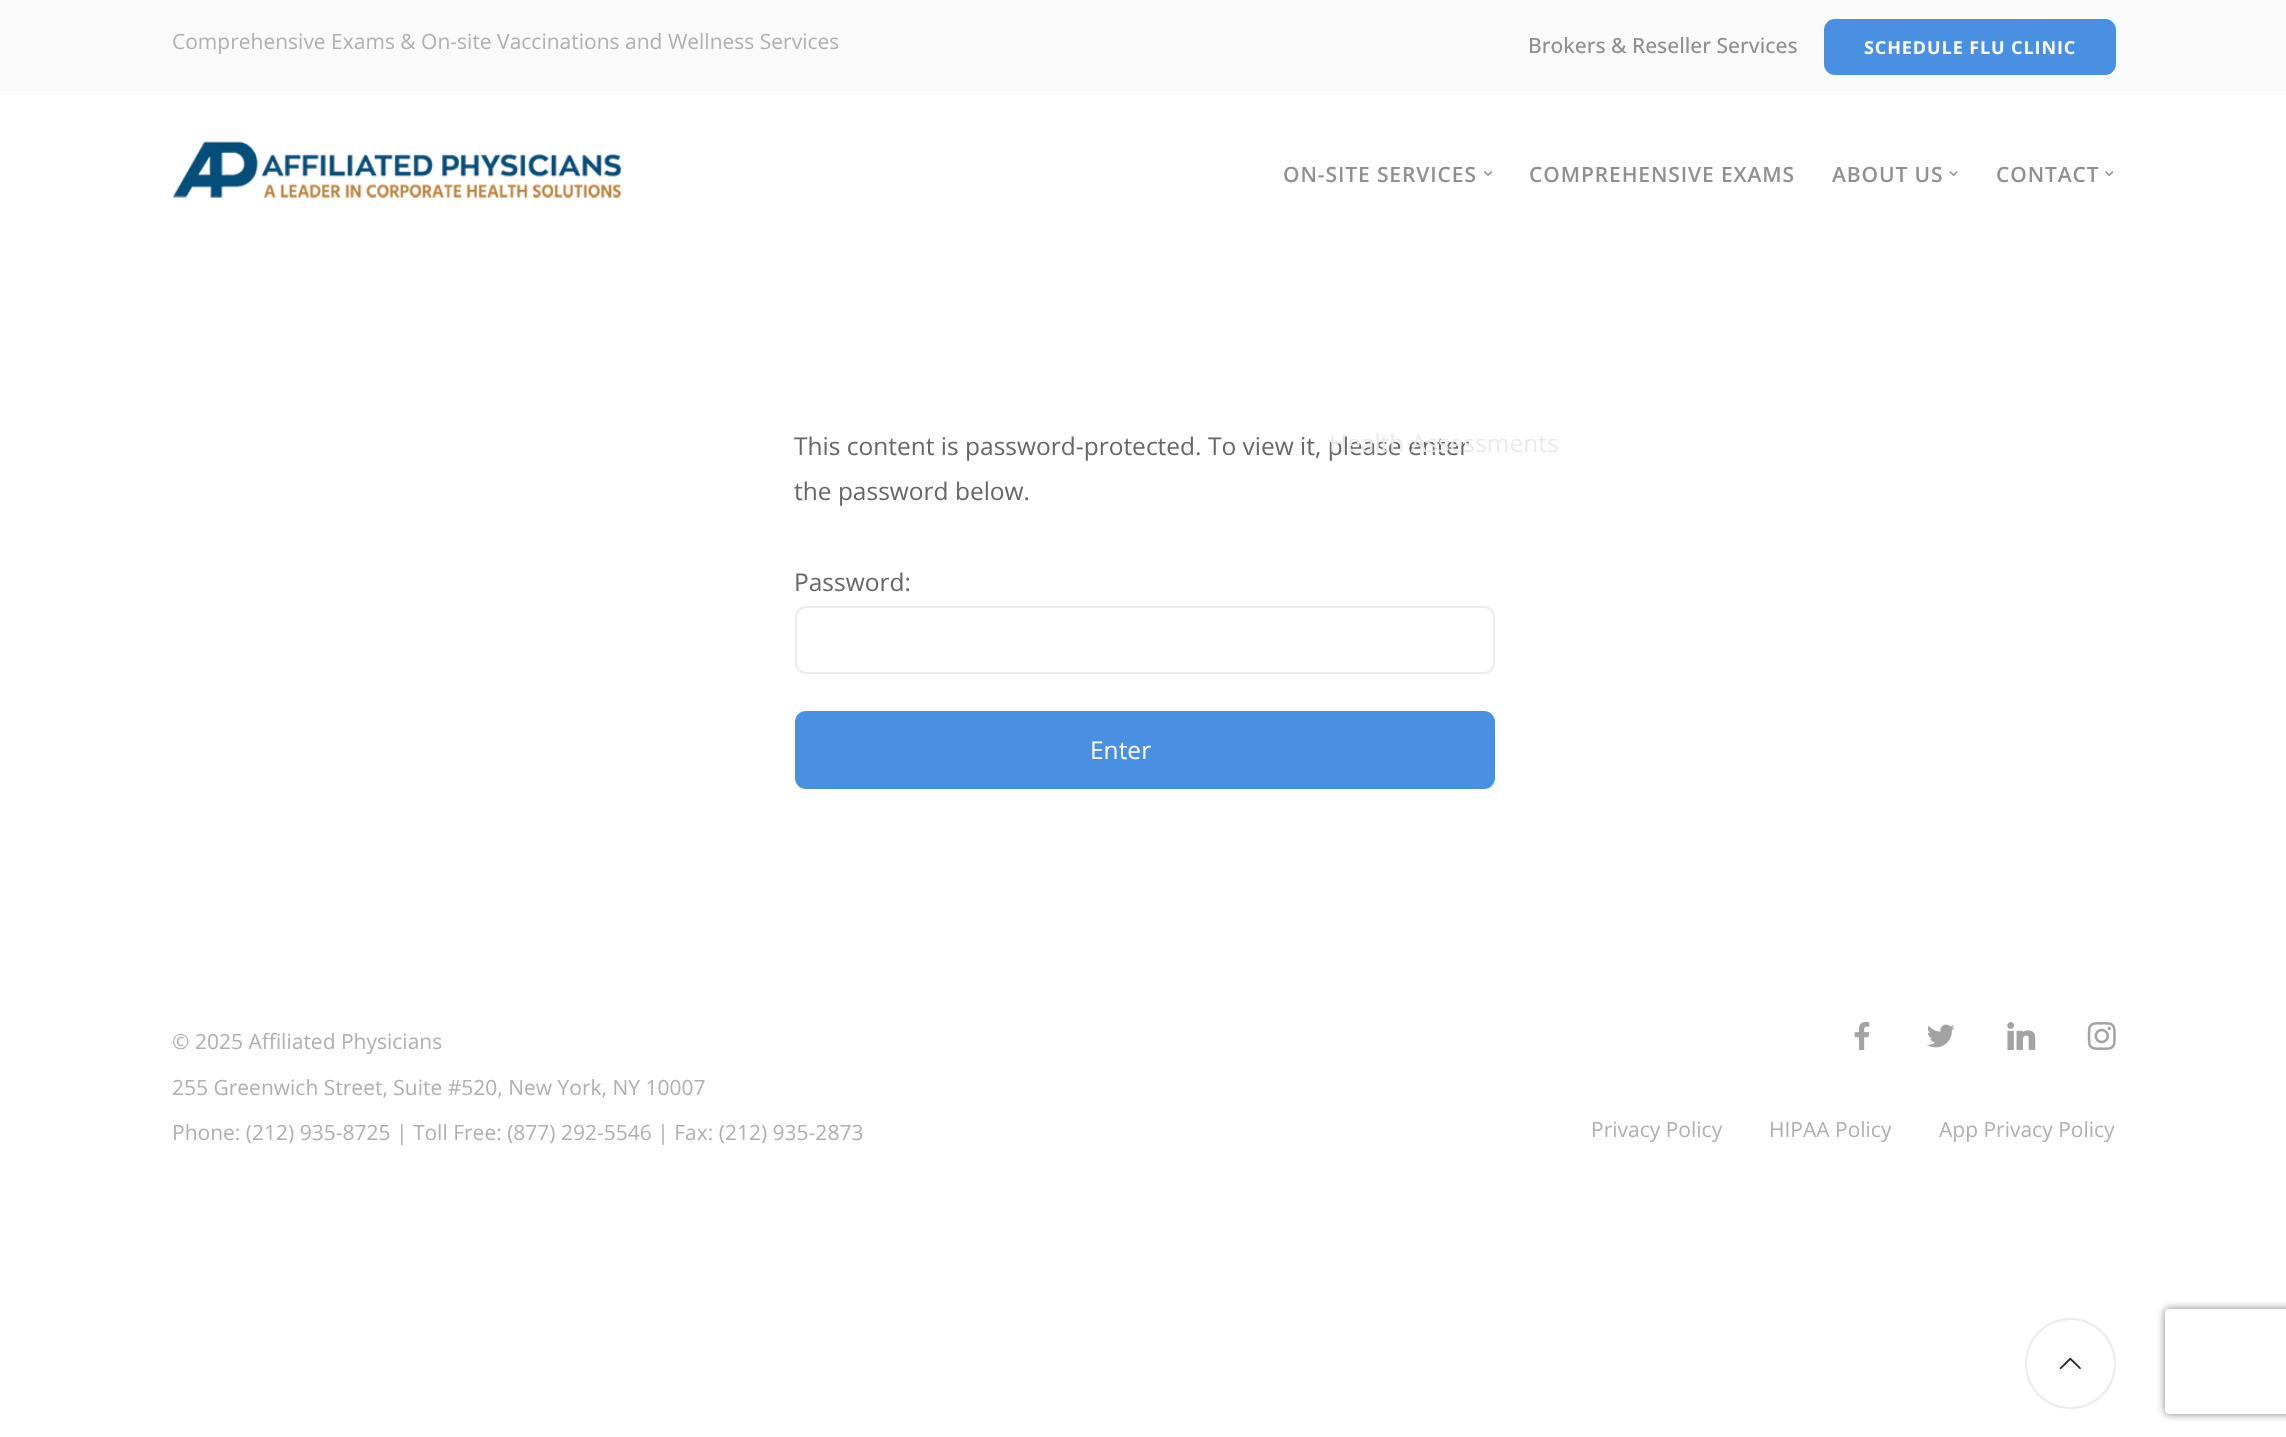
<svg xmlns="http://www.w3.org/2000/svg" width="2286" height="1437">
<defs>
<clipPath id="clip1"><path d="M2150 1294h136v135h-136zm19 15h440c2 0 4 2 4 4v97c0 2-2 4-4 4h-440c-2 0-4-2-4-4v-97c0-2 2-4 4-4z" clip-rule="evenodd"/></clipPath>
</defs>
<rect width="100%" height="100%" fill="#fff"/>
<rect width="2286" height="95" fill="#fafafa"/>
<text x="172" y="49" style="font-family:Open Sans;font-size:21px;fill:#b0b0b0">Comprehensive Exams &amp; On-site Vaccinations and Wellness Services</text>
<text x="1528" y="53" style="font-family:Open Sans;font-size:21px;font-weight:500;fill:#909090">Brokers &amp; Reseller Services</text>
<rect x="1825" y="20" width="290" height="54" rx="10" fill="#4a90e2" stroke="#4a90e2" stroke-width="2"/>
<text x="1864" y="54" style="font-family:Open Sans;font-size:18px;font-weight:bold;letter-spacing:0.9px;fill:#fff">SCHEDULE FLU CLINIC</text>
<image x="173" y="141" width="449" height="57" href="media/1.png"/>
<text x="1283" y="182" style="font-family:Open Sans;font-size:21px;font-weight:600;letter-spacing:0.9px;fill:#909090">ON-SITE SERVICES</text>
<image x="1484" y="171" width="8" height="5" href="media/2.png"/>
<text x="794" y="455" style="font-family:Open Sans;font-size:24.5px;fill:#666">This content is password-protected. To view it, please enter</text>
<text x="1329" y="452" style="font-family:Open Sans;font-size:24.5px;fill:#eaeaea">Health Assessments</text>
<text x="1529" y="182" style="font-family:Open Sans;font-size:21px;font-weight:600;letter-spacing:0.9px;fill:#909090">COMPREHENSIVE EXAMS</text>
<text x="1832" y="182" style="font-family:Open Sans;font-size:21px;font-weight:600;letter-spacing:0.9px;fill:#909090">ABOUT US</text>
<image x="1949" y="171" width="9" height="5" href="media/3.png"/>
<text x="1996" y="182" style="font-family:Open Sans;font-size:21px;font-weight:600;letter-spacing:0.9px;fill:#909090">CONTACT</text>
<image x="2105" y="171" width="9" height="5" href="media/4.png"/>
<text x="794" y="500" style="font-family:Open Sans;font-size:24.5px;fill:#666">the password below.</text>
<text x="794" y="591" style="font-family:Open Sans;font-size:24.5px;fill:#666">Password:</text>
<rect x="796" y="607" width="698" height="66" rx="10" fill="none" stroke="#ececec" stroke-width="2"/>
<rect x="795" y="711" width="700" height="78" rx="11" fill="#4a90e2"/>
<text x="1090" y="759" style="font-family:Open Sans;font-size:24.5px;fill:#fff">Enter</text>
<text x="172" y="1049" style="font-family:Open Sans;font-size:21px;fill:#b0b0b0">© 2025 Affiliated Physicians</text>
<text x="172" y="1095" style="font-family:Open Sans;font-size:21px;fill:#b0b0b0">255 Greenwich Street, Suite #520, New York, NY 10007</text>
<text x="172" y="1140" style="font-family:Open Sans;font-size:21px;fill:#b0b0b0">Phone: (212) 935-8725 | Toll Free: (877) 292-5546 | Fax: (212) 935-2873</text>
<image x="1854" y="1022" width="16" height="28" href="media/5.png"/>
<image x="1927" y="1024" width="28" height="24" href="media/6.png"/>
<image x="2007" y="1022" width="29" height="28" href="media/7.png"/>
<image x="2087" y="1022" width="29" height="28" href="media/8.png"/>
<text x="1591" y="1137" style="font-family:Open Sans;font-size:21px;fill:#b0b0b0">Privacy Policy</text>
<text x="1769" y="1137" style="font-family:Open Sans;font-size:21px;fill:#b0b0b0">HIPAA Policy</text>
<text x="1939" y="1137" style="font-family:Open Sans;font-size:21px;fill:#b0b0b0">App Privacy Policy</text>
<circle cx="2070.5" cy="1363.5" r="44.5" fill="none" stroke="#ececec" stroke-width="2"/>
<image x="2059" y="1357" width="22" height="12" href="media/9.png"/>
<g clip-path="url(#clip1)">
<rect x="2165" y="1309" width="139" height="105" rx="4" fill="#808080" filter="blur(4.5px)"/>
</g>
</svg>
